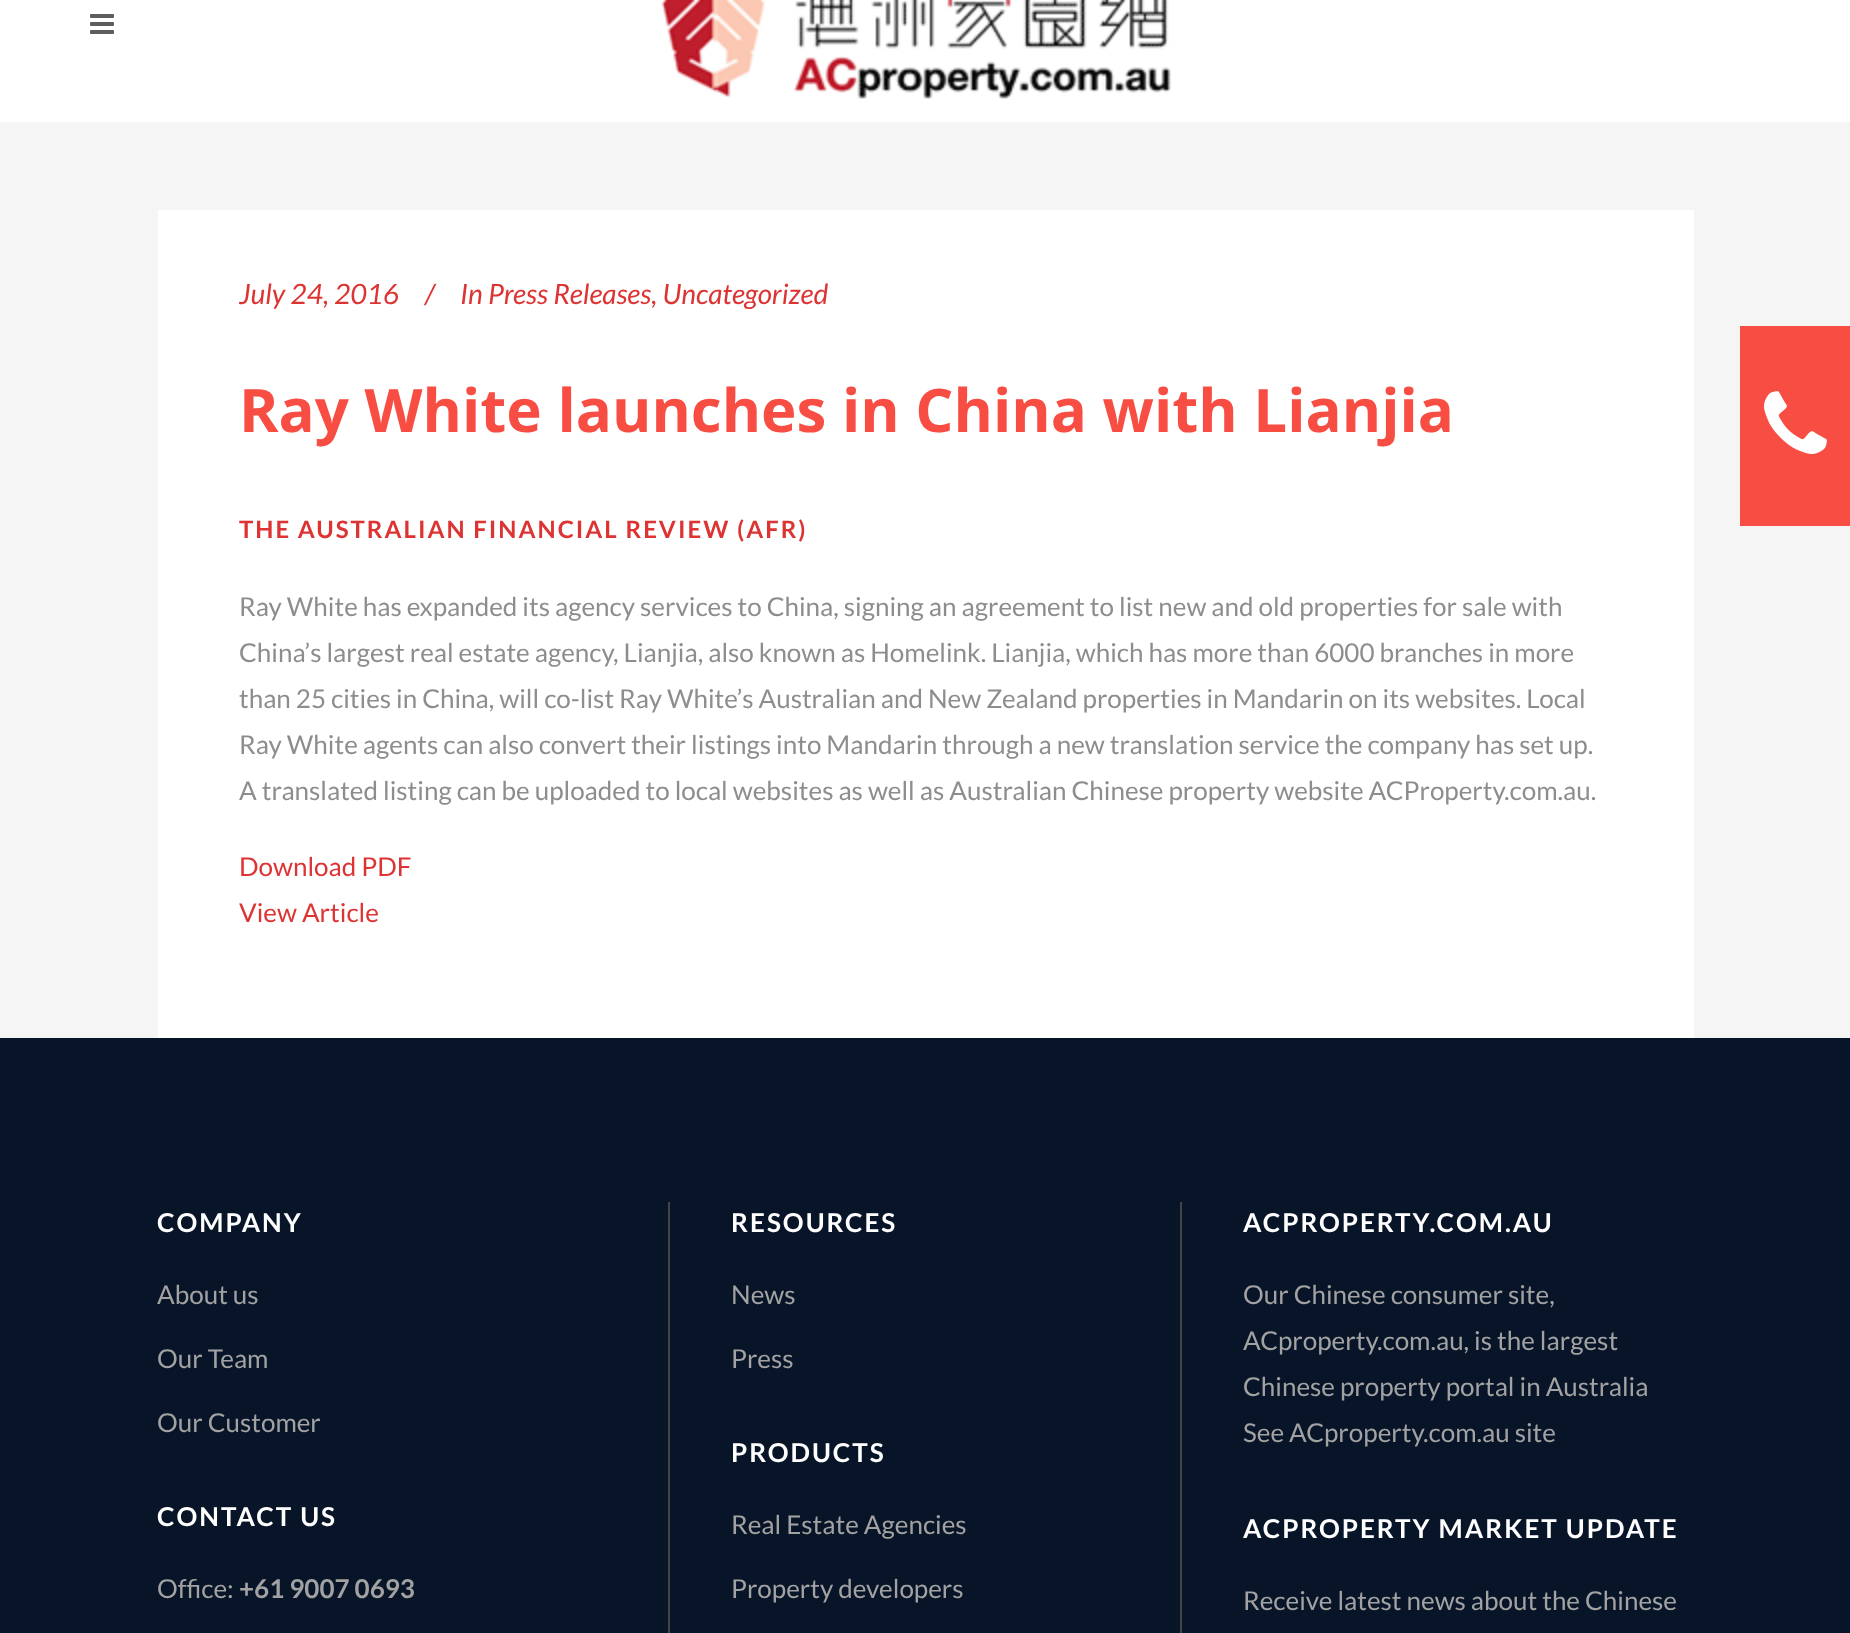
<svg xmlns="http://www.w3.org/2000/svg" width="1850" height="1633">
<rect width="100%" height="100%" fill="#f5f5f5"/>
<rect width="1850" height="122" fill="#fff"/>
<image x="90" y="14" width="24" height="20" href="media/1.png"/>
<image x="661" y="0" width="510" height="99" href="media/2.png"/>
<rect x="1740" y="326" width="110" height="200" fill="#f84d43"/>
<image x="1764" y="391" width="63" height="63" href="media/3.png"/>
<rect x="158" y="210" width="1536" height="828" fill="#fff"/>
<text x="239" y="304" style="font-family:Lato;font-size:28px;font-style:italic;fill:#d33">July 24, 2016</text>
<text x="425" y="304" style="font-family:Lato;font-size:28px;font-style:italic;fill:#d33">/</text>
<text x="460" y="304" style="font-family:Lato;font-size:28px;font-style:italic;fill:#d33">In Press Releases, Uncategorized</text>
<text x="239" y="432" style="font-family:Open Sans;font-size:60px;font-weight:bold;fill:#f84d42">Ray White launches in China with Lianjia</text>
<text x="239" y="538" style="font-family:Lato;font-size:24px;font-weight:bold;letter-spacing:2px;fill:#d33">THE AUSTRALIAN FINANCIAL REVIEW (AFR)</text>
<text x="239" y="616" style="font-family:Lato;font-size:26px;fill:#8d8d8d">Ray White has expanded its agency services to China, signing an agreement to list new and old properties for sale with</text>
<text x="239" y="662" style="font-family:Lato;font-size:26px;fill:#8d8d8d">China’s largest real estate agency, Lianjia, also known as Homelink. Lianjia, which has more than 6000 branches in more</text>
<text x="239" y="708" style="font-family:Lato;font-size:26px;fill:#8d8d8d">than 25 cities in China, will co-list Ray White’s Australian and New Zealand properties in Mandarin on its websites. Local</text>
<text x="239" y="754" style="font-family:Lato;font-size:26px;fill:#8d8d8d">Ray White agents can also convert their listings into Mandarin through a new translation service the company has set up.</text>
<text x="239" y="800" style="font-family:Lato;font-size:26px;fill:#8d8d8d">A translated listing can be uploaded to local websites as well as Australian Chinese property website ACProperty.com.au.</text>
<text x="239" y="876" style="font-family:Lato;font-size:26px;fill:#d33">Download PDF</text>
<text x="239" y="922" style="font-family:Lato;font-size:26px;fill:#d33">View Article</text>
<rect y="1038" width="1850" height="595" fill="#081528"/>
<text x="157" y="1232" style="font-family:Lato;font-size:26px;font-weight:bold;letter-spacing:2px;fill:#fff">COMPANY</text>
<text x="157" y="1304" style="font-family:Lato;font-size:26px;fill:#a2a2a2">About us</text>
<text x="157" y="1368" style="font-family:Lato;font-size:26px;fill:#a2a2a2">Our Team</text>
<text x="157" y="1432" style="font-family:Lato;font-size:26px;fill:#a2a2a2">Our Customer</text>
<text x="157" y="1526" style="font-family:Lato;font-size:26px;font-weight:bold;letter-spacing:2px;fill:#fff">CONTACT US</text>
<text x="157" y="1598" style="font-family:Lato;font-size:26px;fill:#a2a2a2">Office:</text>
<text x="239" y="1598" style="font-family:Lato;font-size:26px;font-weight:bold;fill:#a2a2a2">+61 9007 0693</text>
<rect x="668" y="1202" width="2" height="431" fill="#444"/>
<text x="731" y="1232" style="font-family:Lato;font-size:26px;font-weight:bold;letter-spacing:2px;fill:#fff">RESOURCES</text>
<text x="731" y="1304" style="font-family:Lato;font-size:26px;fill:#a2a2a2">News</text>
<text x="731" y="1368" style="font-family:Lato;font-size:26px;fill:#a2a2a2">Press</text>
<text x="731" y="1462" style="font-family:Lato;font-size:26px;font-weight:bold;letter-spacing:2px;fill:#fff">PRODUCTS</text>
<text x="731" y="1534" style="font-family:Lato;font-size:26px;fill:#a2a2a2">Real Estate Agencies</text>
<text x="731" y="1598" style="font-family:Lato;font-size:26px;fill:#a2a2a2">Property developers</text>
<rect x="1180" y="1202" width="2" height="431" fill="#444"/>
<text x="1243" y="1232" style="font-family:Lato;font-size:26px;font-weight:bold;letter-spacing:2px;fill:#fff">ACPROPERTY.COM.AU</text>
<text x="1243" y="1304" style="font-family:Lato;font-size:26px;fill:#a2a2a2">Our Chinese consumer site,</text>
<text x="1243" y="1350" style="font-family:Lato;font-size:26px;fill:#a2a2a2">ACproperty.com.au, is the largest</text>
<text x="1243" y="1396" style="font-family:Lato;font-size:26px;fill:#a2a2a2">Chinese property portal in Australia</text>
<text x="1243" y="1442" style="font-family:Lato;font-size:26px;fill:#a2a2a2">See ACproperty.com.au site</text>
<text x="1243" y="1538" style="font-family:Lato;font-size:26px;font-weight:bold;letter-spacing:2px;fill:#fff">ACPROPERTY MARKET UPDATE</text>
<text x="1243" y="1610" style="font-family:Lato;font-size:26px;fill:#a2a2a2">Receive latest news about the Chinese</text>
</svg>
